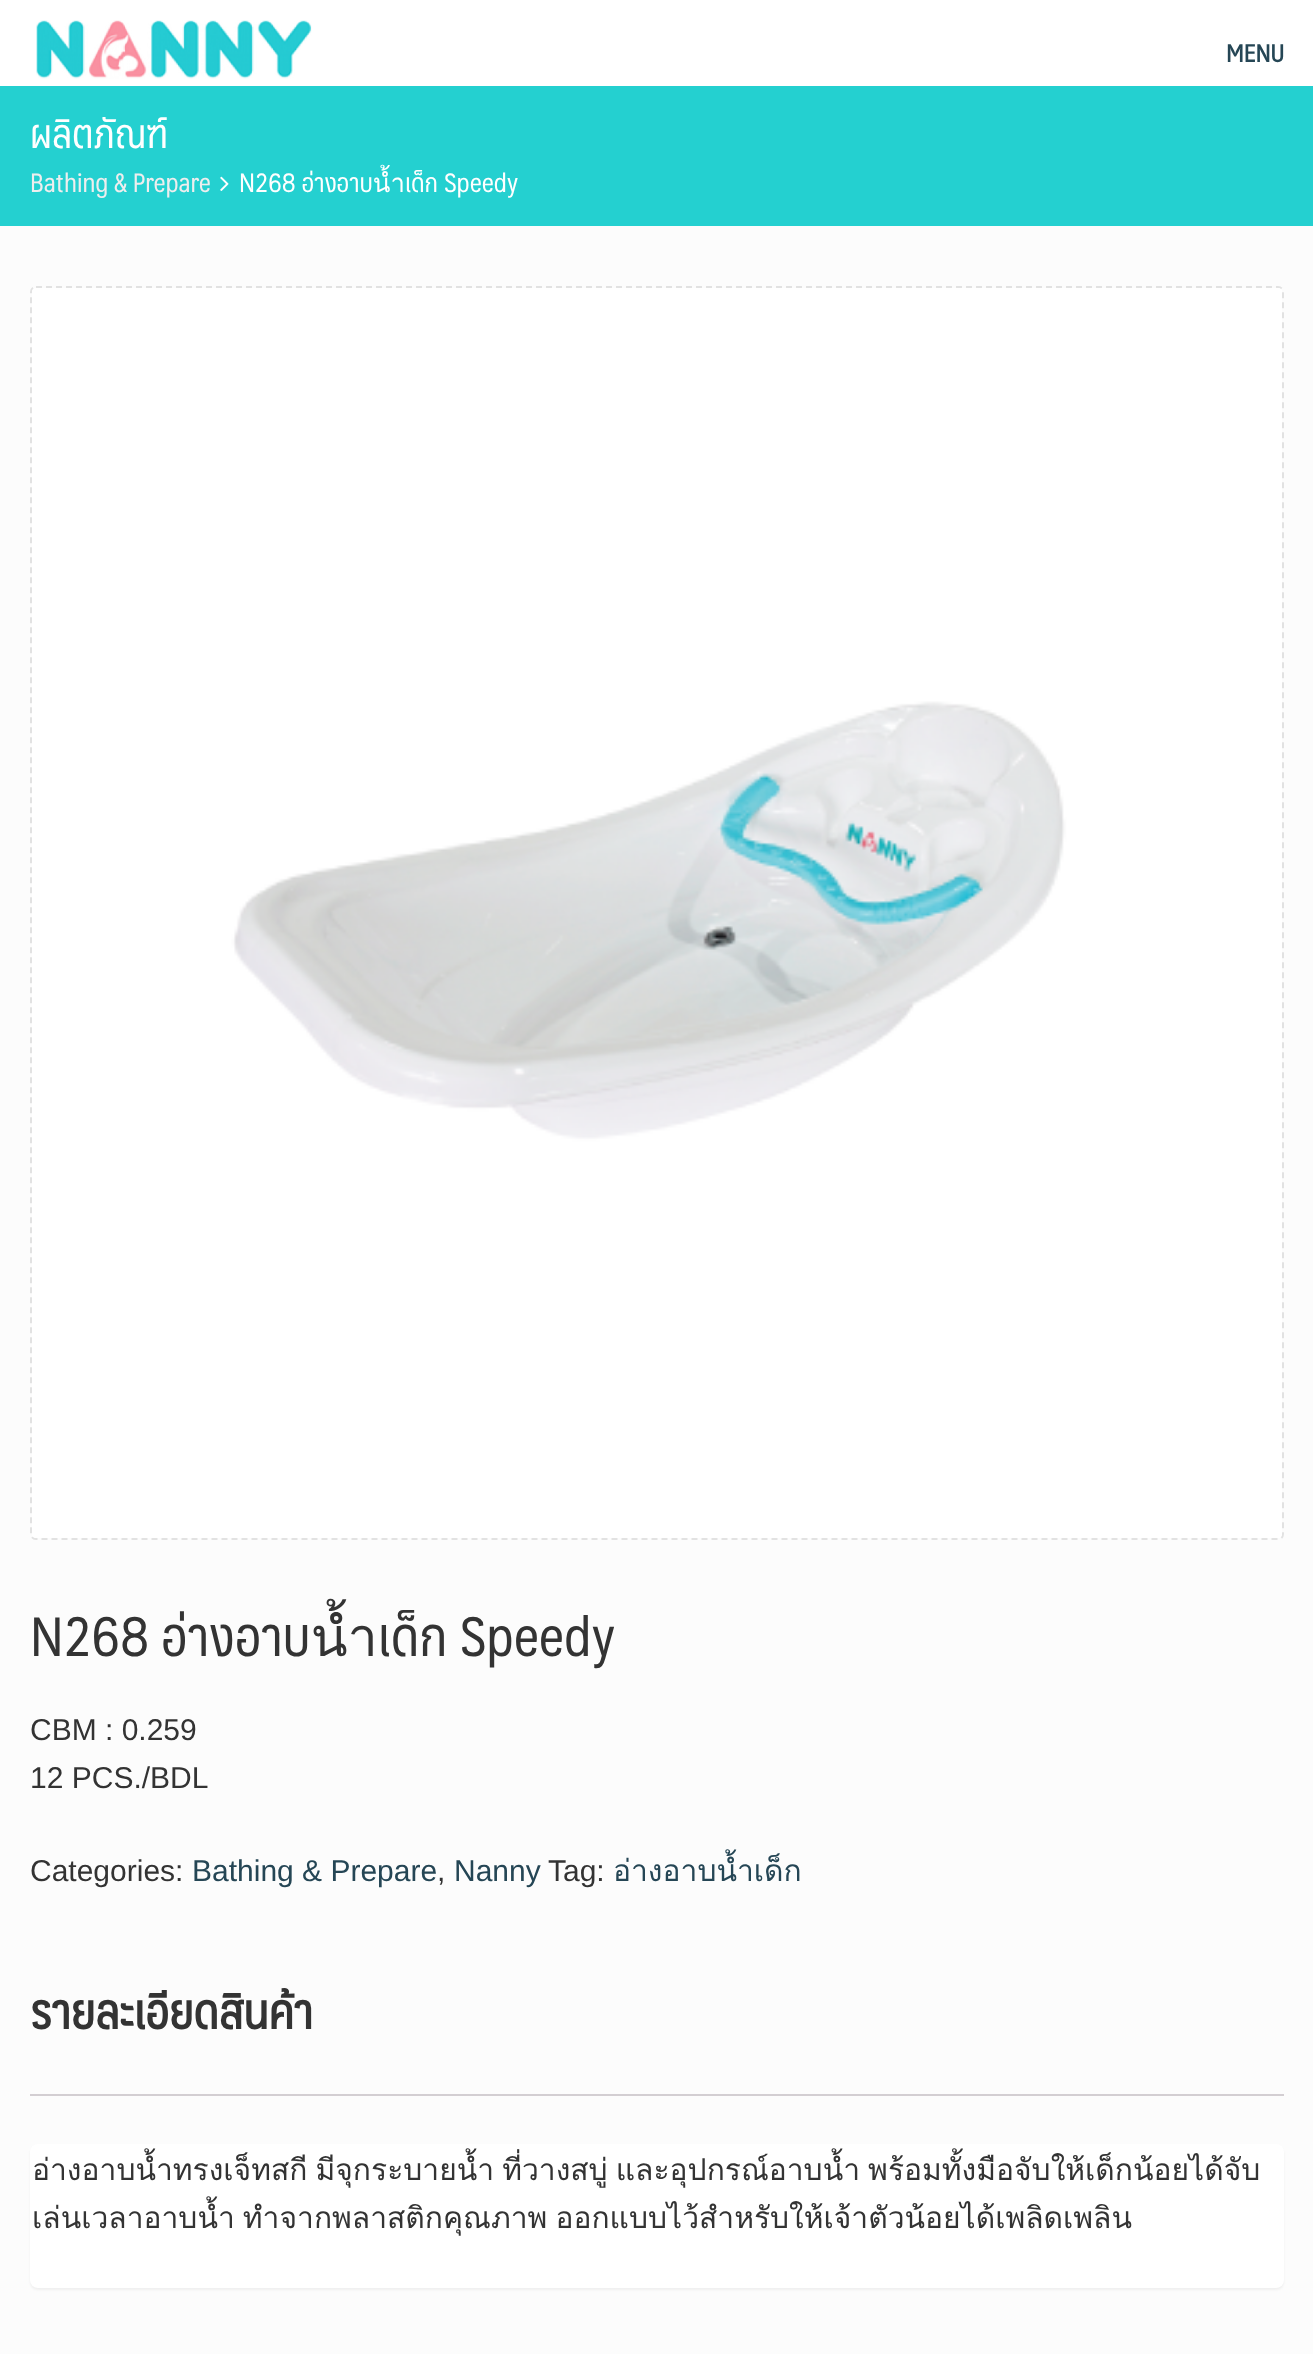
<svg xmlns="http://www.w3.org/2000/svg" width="1313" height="2354">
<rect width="100%" height="100%" fill="#fcfcfc"/>
<rect width="1313" height="86" fill="#fff"/>
<image x="36" y="20" width="276" height="59" href="media/1.png"/>
<text x="1226" y="62" style="font-family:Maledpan;font-size:24px;font-weight:bold;fill:#254655">MENU</text>
<rect y="86" width="1313" height="140" fill="#24d0d0"/>
<text x="30" y="148" style="font-family:Maledpan;font-size:40px;fill:#fff">ผลิตภัณฑ์</text>
<text x="30" y="192" style="font-family:Maledpan;font-size:25.75px;fill:#eee">Bathing &amp; Prepare</text>
<image x="220" y="176" width="9" height="15" href="media/2.png"/>
<text x="239" y="192" style="font-family:Maledpan;font-size:25.75px;fill:#fff">N268 อ่างอาบน้ำเด็ก Speedy</text>
<path d="M36 287h1242c3 0 5 2 5 5v1242c0 3-2 5-5 5h-1242c-3 0-5-2-5-5v-1242c0-3 2-5 5-5z" fill="none" stroke="#e2e2e2" stroke-width="2" stroke-dasharray="6 4"/>
<image x="32" y="288" width="1250" height="1250" href="media/3.png"/>
<text x="30" y="1656" style="font-family:Maledpan;font-size:54px;fill:#333">N268 อ่างอาบน้ำเด็ก Speedy</text>
<text x="30" y="1740" style="font-family:Liberation Sans;font-size:30px;fill:#333">CBM : 0.259</text>
<text x="30" y="1788" style="font-family:Liberation Sans;font-size:30px;fill:#333">12 PCS./BDL</text>
<text x="30" y="1881" style="font-family:Liberation Sans;font-size:30px;fill:#333">Categories:</text>
<text x="192" y="1881" style="font-family:Liberation Sans;font-size:30px;fill:#254655">Bathing &amp; Prepare</text>
<text x="437" y="1881" style="font-family:Liberation Sans;font-size:30px;fill:#333">,</text>
<text x="454" y="1881" style="font-family:Liberation Sans;font-size:30px;fill:#254655">Nanny</text>
<text x="548" y="1881" style="font-family:Liberation Sans;font-size:30px;fill:#333">Tag:</text>
<text x="613" y="1881" style="font-family:Loma;font-size:30px;fill:#254655">อ่างอาบน้ำเด็ก</text>
<text x="30" y="2029" style="font-family:Maledpan;font-size:48px;font-weight:bold;fill:#333">รายละเอียดสินค้า</text>
<rect x="30" y="2094" width="1254" height="2" fill="#d3ced2"/>
<rect x="30" y="2146" width="1254" height="144" rx="8" fill="#0000000d" filter="blur(1px)"/>
<rect x="30" y="2144" width="1254" height="144" rx="8" fill="#fff"/>
<text x="32" y="2180" word-spacing="-2" style="font-family:Loma;font-size:30px;fill:#333">อ่างอาบน้ำทรงเจ็ทสกี มีจุกระบายน้ำ ที่วางสบู่ และอุปกรณ์อาบน้ำ พร้อมทั้งมือจับให้เด็กน้อยได้จับ</text>
<text x="32" y="2228" word-spacing="-2" style="font-family:Loma;font-size:30px;fill:#333">เล่นเวลาอาบน้ำ ทำจากพลาสติกคุณภาพ ออกแบบไว้สำหรับให้เจ้าตัวน้อยได้เพลิดเพลิน</text>
</svg>
